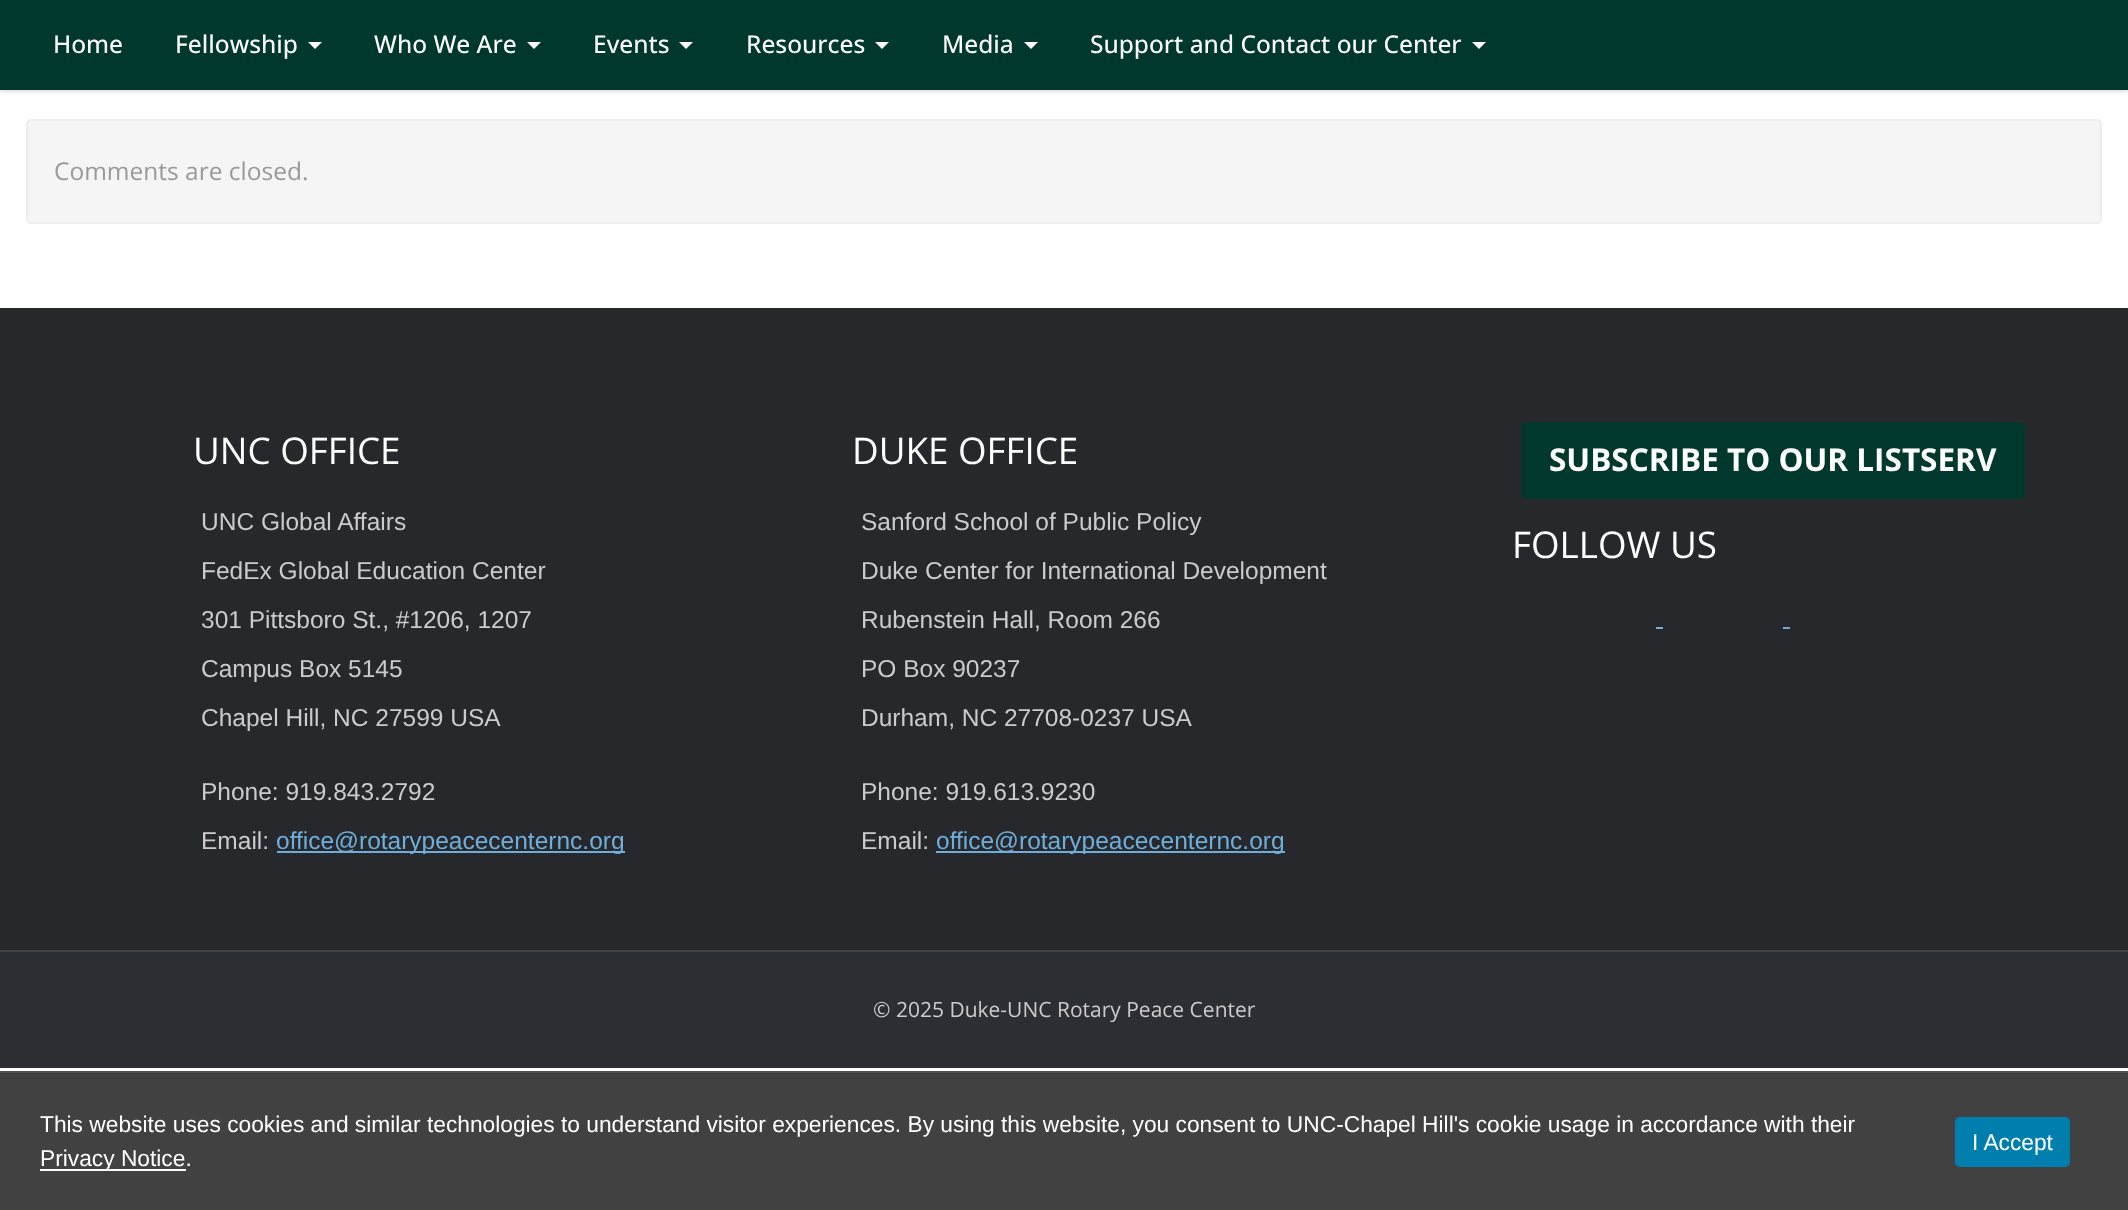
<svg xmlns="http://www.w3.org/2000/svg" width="2128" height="1210">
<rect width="100%" height="100%" fill="#fff"/>
<rect y="2" width="2128" height="89" fill="#6464644d" filter="blur(2px)"/>
<rect width="2128" height="90" fill="#00382d"/>
<text x="53" y="53" style="font-family:Open Sans;font-size:24.5px;font-weight:500;fill:#fff">Home</text>
<text x="175" y="53" style="font-family:Open Sans;font-size:24.5px;font-weight:500;fill:#fff">Fellowship</text>
<path d="M308 42h14l-7 7z" fill="#fff"/>
<text x="374" y="53" style="font-family:Open Sans;font-size:24.5px;font-weight:500;fill:#fff">Who We Are</text>
<path d="M527 42h14l-7 7z" fill="#fff"/>
<text x="593" y="53" style="font-family:Open Sans;font-size:24.5px;font-weight:500;fill:#fff">Events</text>
<path d="M679 42h14l-7 7z" fill="#fff"/>
<text x="746" y="53" style="font-family:Open Sans;font-size:24.5px;font-weight:500;fill:#fff">Resources</text>
<path d="M875 42h14l-7 7z" fill="#fff"/>
<text x="942" y="53" style="font-family:Open Sans;font-size:24.5px;font-weight:500;fill:#fff">Media</text>
<path d="M1024 42h14l-7 7z" fill="#fff"/>
<text x="1090" y="53" style="font-family:Open Sans;font-size:24.5px;font-weight:500;fill:#fff">Support and Contact our Center</text>
<path d="M1472 42h14l-7 7z" fill="#fff"/>
<rect x="27" y="120" width="2074" height="103" rx="4" fill="#f5f5f5" stroke="#eee" stroke-width="2"/>
<text x="54" y="180" style="font-family:Open Sans;font-size:24.5px;fill:#999">Comments are closed.</text>
<rect y="308" width="2128" height="642" fill="#26282b"/>
<text x="193" y="464" style="font-family:Open Sans;font-size:36.75px;fill:#fff">UNC OFFICE</text>
<text x="201" y="530" style="font-family:Liberation Sans;font-size:24.5px;fill:#cccacc">UNC Global Affairs</text>
<text x="201" y="579" style="font-family:Liberation Sans;font-size:24.5px;fill:#cccacc">FedEx Global Education Center</text>
<text x="201" y="628" style="font-family:Liberation Sans;font-size:24.5px;fill:#cccacc">301 Pittsboro St., #1206, 1207</text>
<text x="201" y="677" style="font-family:Liberation Sans;font-size:24.5px;fill:#cccacc">Campus Box 5145</text>
<text x="201" y="726" style="font-family:Liberation Sans;font-size:24.5px;fill:#cccacc">Chapel Hill, NC 27599 USA</text>
<text x="201" y="800" style="font-family:Liberation Sans;font-size:24.5px;fill:#cccacc">Phone: 919.843.2792</text>
<text x="201" y="849" style="font-family:Liberation Sans;font-size:24.5px;fill:#cccacc">Email:</text>
<rect x="277" y="851" width="348" height="2" fill="#6faeda"/>
<text x="276" y="849" style="font-family:Liberation Sans;font-size:24.5px;fill:#6faeda">office@rotarypeacecenternc.org</text>
<text x="852" y="464" style="font-family:Open Sans;font-size:36.75px;fill:#fff">DUKE OFFICE</text>
<text x="861" y="530" style="font-family:Liberation Sans;font-size:24.5px;fill:#cccacc">Sanford School of Public Policy</text>
<text x="861" y="579" style="font-family:Liberation Sans;font-size:24.5px;fill:#cccacc">Duke Center for International Development</text>
<text x="861" y="628" style="font-family:Liberation Sans;font-size:24.5px;fill:#cccacc">Rubenstein Hall, Room 266</text>
<text x="861" y="677" style="font-family:Liberation Sans;font-size:24.5px;fill:#cccacc">PO Box 90237</text>
<text x="861" y="726" style="font-family:Liberation Sans;font-size:24.5px;fill:#cccacc">Durham, NC 27708-0237 USA</text>
<text x="861" y="800" style="font-family:Liberation Sans;font-size:24.5px;fill:#cccacc">Phone: 919.613.9230</text>
<text x="861" y="849" style="font-family:Liberation Sans;font-size:24.5px;fill:#cccacc">Email:</text>
<rect x="936" y="851" width="349" height="2" fill="#6faeda"/>
<text x="936" y="849" style="font-family:Liberation Sans;font-size:24.5px;fill:#6faeda">office@rotarypeacecenternc.org</text>
<rect x="1521" y="422" width="504" height="77" rx="5" fill="#00382d"/>
<text x="1549" y="471" style="font-family:Open Sans;font-size:31.5px;font-weight:bold;fill:#fff">SUBSCRIBE TO OUR LISTSERV</text>
<text x="1512" y="558" style="font-family:Open Sans;font-size:36.75px;fill:#fff">FOLLOW US</text>
<rect x="1656" y="627" width="7" height="2" fill="#6faeda"/>
<rect x="1783" y="627" width="7" height="2" fill="#6faeda"/>
<rect y="952" width="2128" height="116" fill="#2b2e32"/>
<rect y="950" width="2128" height="2" fill="#3e4248"/>
<text x="873" y="1017" style="font-family:Open Sans;font-size:21px;fill:#cccacc">© 2025 Duke-UNC Rotary Peace Center</text>
<rect y="1073" width="2128" height="137" fill="#414141"/>
<rect y="1071" width="2128" height="2" fill="#515151"/>
<text x="40" y="1132" style="font-family:Liberation Sans;font-size:22.75px;fill:#fff">This website uses cookies and similar technologies to understand visitor experiences. By using this website, you consent to UNC-Chapel Hill's cookie usage in accordance with their</text>
<rect x="40" y="1169" width="146" height="2" fill="#fff"/>
<text x="40" y="1166" style="font-family:Liberation Sans;font-size:22.75px;fill:#fff">Privacy Notice.</text>
<rect x="1955" y="1117" width="115" height="50" rx="5" fill="#007fae"/>
<text x="1972" y="1150" style="font-family:Liberation Sans;font-size:22.75px;fill:#fff">I Accept</text>
</svg>
